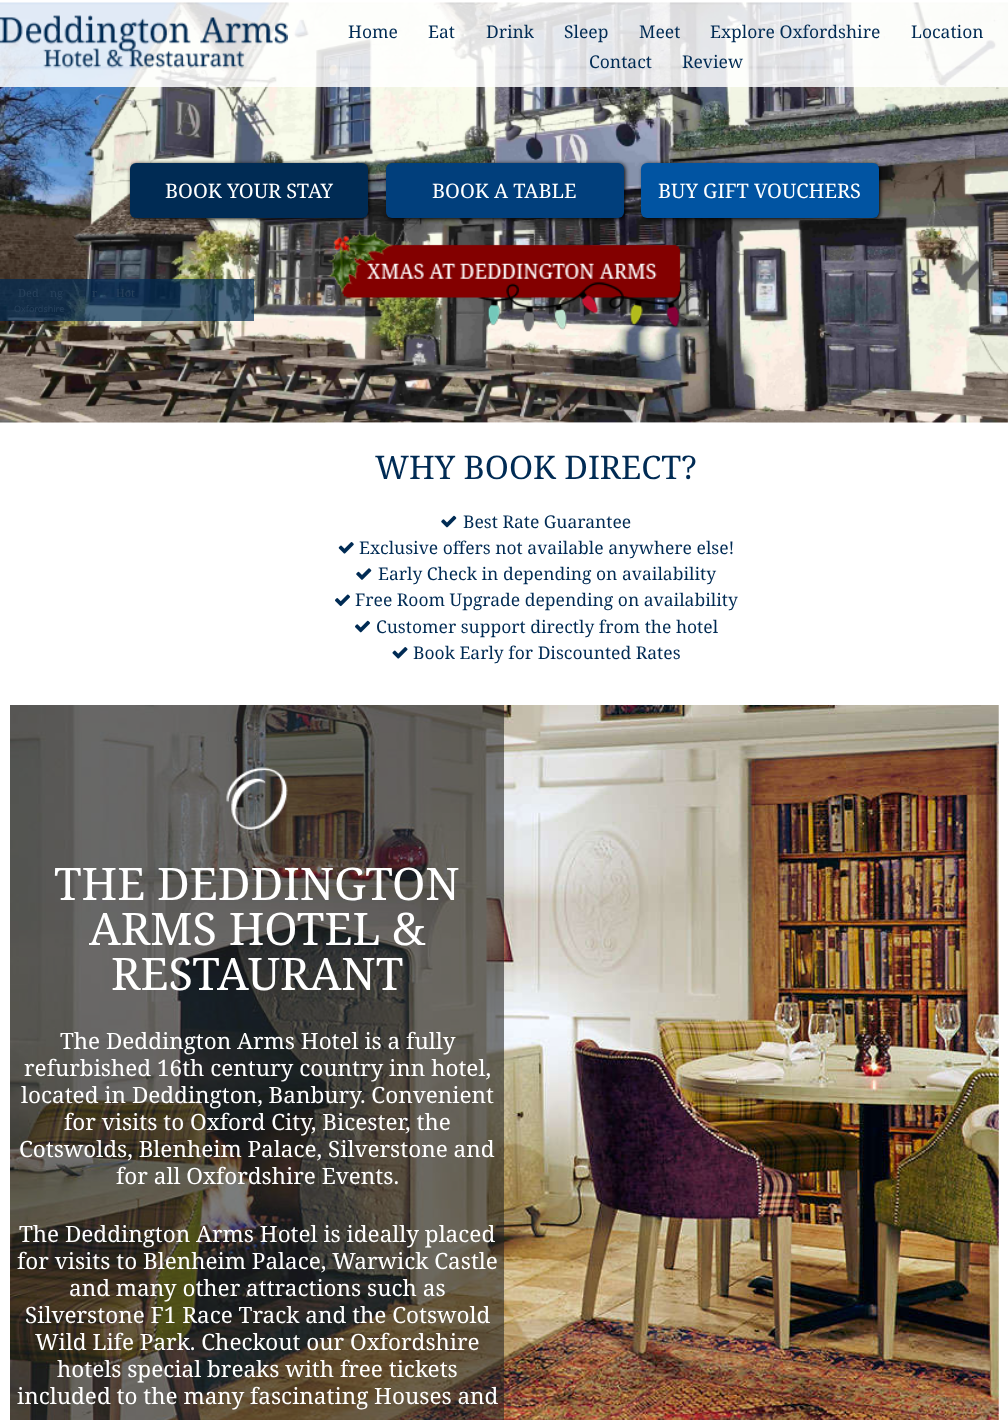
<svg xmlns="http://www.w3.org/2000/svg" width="1008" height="1420">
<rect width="100%" height="100%" fill="#fff"/>
<image x="0" y="2" width="1008" height="421" href="media/4.png"/>
<image x="0" y="2" width="1008" height="85" href="media/1.png"/>
<image x="0" y="15" width="288" height="53" href="media/2.png"/>
<text x="348" y="38" style="font-family:Noto Serif;font-size:17.5px;fill:#002b54">Home</text>
<text x="428" y="38" style="font-family:Noto Serif;font-size:17.5px;fill:#002b54">Eat</text>
<text x="486" y="38" style="font-family:Noto Serif;font-size:17.5px;fill:#002b54">Drink</text>
<text x="564" y="38" style="font-family:Noto Serif;font-size:17.5px;fill:#002b54">Sleep</text>
<text x="639" y="38" style="font-family:Noto Serif;font-size:17.5px;fill:#002b54">Meet</text>
<text x="710" y="38" style="font-family:Noto Serif;font-size:17.5px;fill:#002b54">Explore Oxfordshire</text>
<text x="911" y="38" style="font-family:Noto Serif;font-size:17.5px;fill:#002b54">Location</text>
<text x="589" y="68" style="font-family:Noto Serif;font-size:17.5px;fill:#002b54">Contact</text>
<text x="682" y="68" style="font-family:Noto Serif;font-size:17.5px;fill:#002b54">Review</text>
<rect x="131" y="164" width="238" height="55" rx="6" fill="#000" filter="blur(2px)"/>
<rect x="130" y="163" width="238" height="55" rx="6" fill="#002b54"/>
<text x="165" y="198" style="font-family:Noto Serif;font-size:20px;fill:#fff">BOOK YOUR STAY</text>
<rect x="388" y="164" width="237" height="55" rx="6" fill="#000" filter="blur(2px)"/>
<rect x="386" y="163" width="238" height="55" rx="6" fill="#013f7c"/>
<text x="432" y="198" style="font-family:Noto Serif;font-size:20px;fill:#fff">BOOK A TABLE</text>
<rect x="643" y="164" width="237" height="55" rx="6" fill="#000" filter="blur(2px)"/>
<rect x="641" y="163" width="238" height="55" rx="6" fill="#0154a2"/>
<text x="658" y="198" style="font-family:Noto Serif;font-size:20px;fill:#fff">BUY GIFT VOUCHERS</text>
<image x="327" y="230" width="355" height="102" href="media/3.png"/>
<rect y="279" width="254" height="42" fill="#002b54b3"/>
<text x="18" y="297" style="font-family:Noto Serif;font-size:11px;fill:#29425c">Ded</text>
<text x="50" y="297" style="font-family:Noto Serif;font-size:11px;fill:#29425c">ng</text>
<text x="92" y="297" style="font-family:Noto Serif;font-size:11px;fill:#29425c">r</text>
<text x="116" y="297" style="font-family:Noto Serif;font-size:11px;fill:#29425c">Hot</text>
<text x="14" y="312" style="font-family:Noto Sans;font-size:9px;fill:#29425c">Oxfordshire</text>
<image x="325" y="422" width="423" height="1" href="media/5.png"/>
<text x="375" y="479" style="font-family:Noto Serif;font-size:32.5px;fill:#002b54">WHY BOOK DIRECT?</text>
<image x="441" y="515" width="16" height="13" href="media/6.png"/>
<text x="463" y="528" style="font-family:Noto Serif;font-size:17.5px;fill:#002b54">Best Rate Guarantee</text>
<image x="338" y="542" width="16" height="12" href="media/7.png"/>
<text x="359" y="554" style="font-family:Noto Serif;font-size:17.5px;fill:#002b54">Exclusive offers not available anywhere else!</text>
<image x="356" y="568" width="16" height="12" href="media/8.png"/>
<text x="378" y="580" style="font-family:Noto Serif;font-size:17.5px;fill:#002b54">Early Check in depending on availability</text>
<image x="335" y="594" width="15" height="13" href="media/9.png"/>
<text x="355" y="606" style="font-family:Noto Serif;font-size:17.5px;fill:#002b54">Free Room Upgrade depending on availability</text>
<image x="355" y="620" width="15" height="13" href="media/10.png"/>
<text x="376" y="633" style="font-family:Noto Serif;font-size:17.5px;fill:#002b54">Customer support directly from the hotel</text>
<image x="392" y="647" width="16" height="12" href="media/11.png"/>
<text x="413" y="659" style="font-family:Noto Serif;font-size:17.5px;fill:#002b54">Book Early for Discounted Rates</text>
<image x="10" y="705" width="989" height="715" href="media/12.png"/>
<rect x="10" y="705" width="494" height="715" fill="#25252599"/>
<image x="226" y="767" width="62" height="63" href="media/13.png"/>
<text x="54" y="900" style="font-family:Noto Serif;font-size:45px;fill:#fff">THE DEDDINGTON</text>
<text x="89" y="945" style="font-family:Noto Serif;font-size:45px;fill:#fff">ARMS HOTEL &amp;</text>
<text x="111" y="990" style="font-family:Noto Serif;font-size:45px;fill:#fff">RESTAURANT</text>
<text x="60" y="1049" style="font-family:Noto Serif;font-size:22.5px;fill:#fff">The Deddington Arms Hotel is a fully</text>
<text x="24" y="1076" style="font-family:Noto Serif;font-size:22.5px;fill:#fff">refurbished 16th century country inn hotel,</text>
<text x="21" y="1103" style="font-family:Noto Serif;font-size:22.5px;fill:#fff">located in Deddington, Banbury. Convenient</text>
<text x="64" y="1130" style="font-family:Noto Serif;font-size:22.5px;fill:#fff">for visits to Oxford City, Bicester, the</text>
<text x="19" y="1157" style="font-family:Noto Serif;font-size:22.5px;fill:#fff">Cotswolds, Blenheim Palace, Silverstone and</text>
<text x="116" y="1184" style="font-family:Noto Serif;font-size:22.5px;fill:#fff">for all Oxfordshire Events.</text>
<text x="19" y="1242" style="font-family:Noto Serif;font-size:22.5px;fill:#fff">The Deddington Arms Hotel is ideally placed</text>
<text x="17" y="1269" style="font-family:Noto Serif;font-size:22.5px;fill:#fff">for visits to Blenheim Palace, Warwick Castle</text>
<text x="69" y="1296" style="font-family:Noto Serif;font-size:22.5px;fill:#fff">and many other attractions such as</text>
<text x="25" y="1323" style="font-family:Noto Serif;font-size:22.5px;fill:#fff">Silverstone F1 Race Track and the Cotswold</text>
<text x="35" y="1350" style="font-family:Noto Serif;font-size:22.5px;fill:#fff">Wild Life Park. Checkout our Oxfordshire</text>
<text x="57" y="1377" style="font-family:Noto Serif;font-size:22.5px;fill:#fff">hotels special breaks with free tickets</text>
<text x="17" y="1404" style="font-family:Noto Serif;font-size:22.5px;fill:#fff">included to the many fascinating Houses and</text>
</svg>
